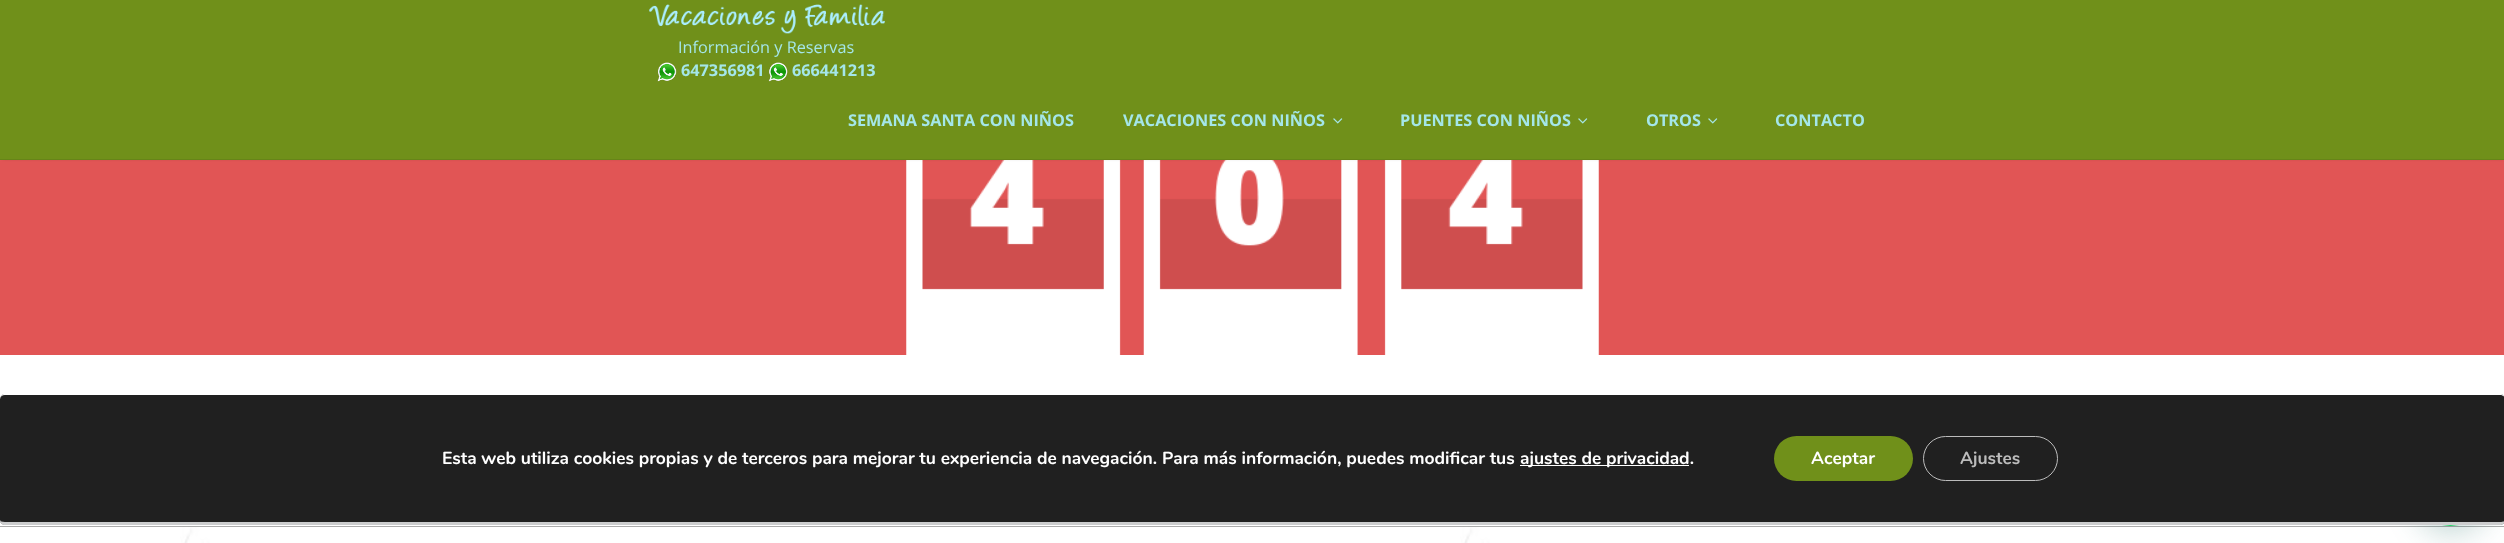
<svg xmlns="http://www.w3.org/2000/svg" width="2504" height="543">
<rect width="100%" height="100%" fill="#fff"/>
<rect y="160" width="2504" height="195" fill="#e15555"/>
<image x="906" y="160" width="693" height="195" href="media/5.png"/>
<rect x="3" y="5" width="2500" height="155" fill="#00000014" filter="blur(1px)"/>
<rect width="2504" height="159" fill="#70901a"/>
<rect y="159" width="2504" height="1" fill="#678418"/>
<image x="649" y="4" width="236" height="30" href="media/1.png"/>
<text x="678" y="53" style="font-family:Open Sans;font-size:16.25px;fill:#a4e6e9">Información y Reservas</text>
<image x="657" y="62" width="20" height="20" href="media/2.png"/>
<text x="681" y="76" style="font-family:Open Sans;font-size:16.25px;font-weight:bold;fill:#a4e6e9">647356981</text>
<image x="768" y="62" width="20" height="20" href="media/3.png"/>
<text x="792" y="76" style="font-family:Open Sans;font-size:16.25px;font-weight:bold;fill:#a4e6e9">666441213</text>
<text x="848" y="126" style="font-family:Open Sans;font-size:16.25px;font-weight:bold;fill:#a4e6e9">SEMANA SANTA CON NIÑOS</text>
<text x="1123" y="126" style="font-family:Open Sans;font-size:16.25px;font-weight:bold;fill:#a4e6e9">VACACIONES CON NIÑOS</text>
<image x="1333" y="118" width="10" height="6" href="media/4.png"/>
<text x="1400" y="126" style="font-family:Open Sans;font-size:16.25px;font-weight:bold;fill:#a4e6e9">PUENTES CON NIÑOS</text>
<image x="1578" y="118" width="10" height="6" href="media/4.png"/>
<text x="1646" y="126" style="font-family:Open Sans;font-size:16.25px;font-weight:bold;fill:#a4e6e9">OTROS</text>
<image x="1708" y="118" width="10" height="6" href="media/4.png"/>
<text x="1775" y="126" style="font-family:Open Sans;font-size:16.25px;font-weight:bold;fill:#a4e6e9">CONTACTO</text>
<rect y="526" width="2504" height="1" fill="#565656"/>
<image x="0" y="526" width="2504" height="17" href="media/6.png"/>
<rect x="2414" y="459" width="75" height="75" rx="37.5" fill="#075e543d" filter="blur(15px)"/>
<circle cx="2450.5" cy="488.5" r="37.5" fill="#25d366"/>
<rect y="394" width="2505" height="131" rx="5" fill="#202020"/>
<path d="M5 394c-3 0-5 2-5 5c0-2 2-4 5-4h2495c3 0 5 2 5 4c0-3-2-5-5-5z" fill="#fff"/>
<path d="M2500 525c3 0 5-2 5-5c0 1-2 2-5 2h-2495c-3 0-5-1-5-2c0 3 2 5 5 5z" fill="#cccdce"/>
<text x="442" y="464" style="font-family:Nunito;font-size:17.5px;font-weight:bold;fill:#fff">Esta web utiliza cookies propias y de terceros para mejorar tu experiencia de navegación. Para más información, puedes modificar tus</text>
<rect x="1520" y="465" width="169" height="1" fill="#fff"/>
<text x="1520" y="464" style="font-family:Nunito;font-size:17.5px;font-weight:bold;fill:#fff">ajustes de privacidad.</text>
<rect x="1774" y="436" width="139" height="45" rx="22.5" fill="#70901a"/>
<text x="1811" y="464" style="font-family:Nunito;font-size:17.5px;font-weight:bold;fill:#fff">Aceptar</text>
<rect x="1923.5" y="436.5" width="134" height="44" rx="22" fill="none" stroke="#bcbcbc"/>
<text x="1960" y="464" style="font-family:Nunito;font-size:17.5px;font-weight:bold;fill:#bcbcbc">Ajustes</text>
</svg>
